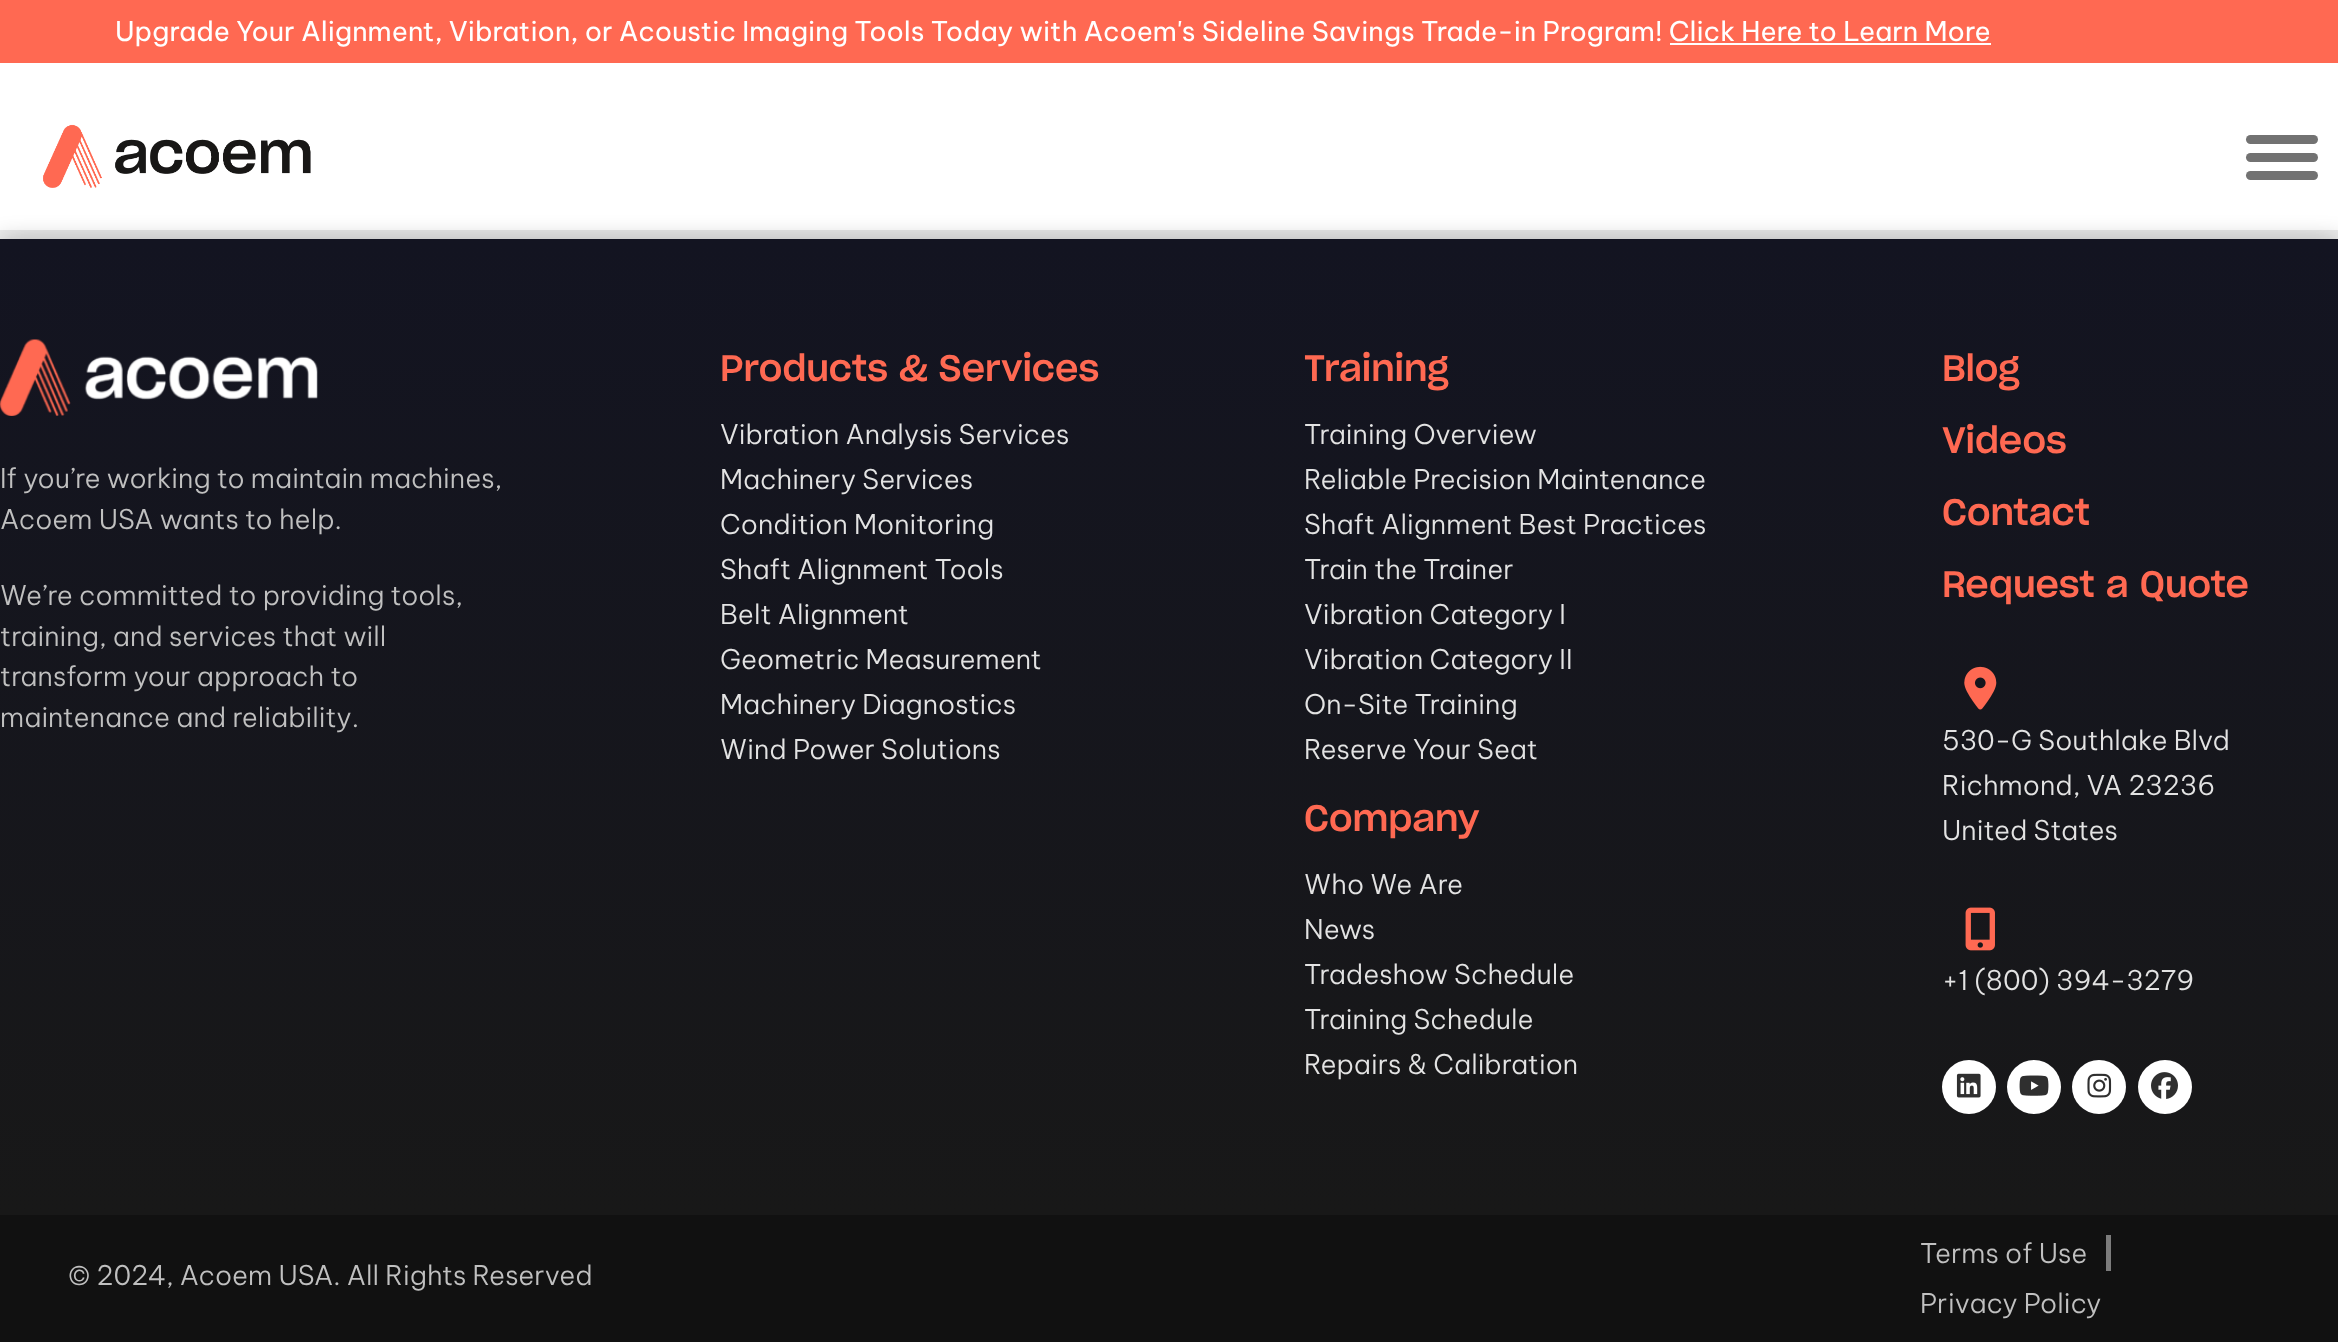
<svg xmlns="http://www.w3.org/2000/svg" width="2338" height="1342">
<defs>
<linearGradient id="g1" gradientUnits="userSpaceOnUse" x1="1170" y1="1215" x2="1170" y2="239"><stop offset="0" stop-color="#181818"/><stop offset="1" stop-color="#131421"/></linearGradient>
</defs>
<rect width="100%" height="100%" fill="#f2f2f2"/>
<rect y="-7" width="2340" height="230" fill="#0000001a" filter="blur(22.5px)"/>
<rect y="63" width="2338" height="167" fill="#fff"/>
<rect width="2338" height="63" fill="#ff6952"/>
<text x="115" y="41" style="font-family:Be Vietnam Pro;font-size:27px;fill:#fff">Upgrade Your Alignment, Vibration, or Acoustic Imaging Tools Today with Acoem's Sideline Savings Trade-in Program! Click Here to Learn More</text>
<rect x="1670" y="43" width="321" height="2" fill="#fff"/>
<image x="43" y="124" width="268" height="64" href="media/1.png"/>
<rect x="2246" y="135" width="72" height="9" rx="4.5" fill="#727272"/>
<rect x="2246" y="153" width="72" height="9" rx="4.5" fill="#727272"/>
<rect x="2246" y="171" width="72" height="9" rx="4.5" fill="#727272"/>
<rect y="239" width="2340" height="976" fill="#00000040" filter="blur(11px)"/>
<rect y="239" width="2338" height="976" fill="url(#g1)"/>
<image x="0" y="339" width="318" height="77" href="media/2.png"/>
<text x="0" y="488" style="font-family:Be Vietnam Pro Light;font-size:27px;font-weight:300;fill:#c0c0c0">If you’re working to maintain machines,</text>
<text x="0" y="529" style="font-family:Be Vietnam Pro Light;font-size:27px;font-weight:300;fill:#c0c0c0">Acoem USA wants to help.</text>
<text x="0" y="605" style="font-family:Be Vietnam Pro Light;font-size:27px;font-weight:300;fill:#c0c0c0">We’re committed to providing tools,</text>
<text x="0" y="646" style="font-family:Be Vietnam Pro Light;font-size:27px;font-weight:300;fill:#c0c0c0">training, and services that will</text>
<text x="0" y="686" style="font-family:Be Vietnam Pro Light;font-size:27px;font-weight:300;fill:#c0c0c0">transform your approach to</text>
<text x="0" y="727" style="font-family:Be Vietnam Pro Light;font-size:27px;font-weight:300;fill:#c0c0c0">maintenance and reliability.</text>
<text x="720" y="381" style="font-family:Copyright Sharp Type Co;font-size:36px;font-weight:500;fill:#ff6952">Products &amp; Services</text>
<text x="720" y="444" style="font-family:Be Vietnam Pro Light;font-size:27px;font-weight:300;fill:#e3e3e3">Vibration Analysis Services</text>
<text x="720" y="489" style="font-family:Be Vietnam Pro Light;font-size:27px;font-weight:300;fill:#e3e3e3">Machinery Services</text>
<text x="720" y="534" style="font-family:Be Vietnam Pro Light;font-size:27px;font-weight:300;fill:#e3e3e3">Condition Monitoring</text>
<text x="720" y="579" style="font-family:Be Vietnam Pro Light;font-size:27px;font-weight:300;fill:#e3e3e3">Shaft Alignment Tools</text>
<text x="720" y="624" style="font-family:Be Vietnam Pro Light;font-size:27px;font-weight:300;fill:#e3e3e3">Belt Alignment</text>
<text x="720" y="669" style="font-family:Be Vietnam Pro Light;font-size:27px;font-weight:300;fill:#e3e3e3">Geometric Measurement</text>
<text x="720" y="714" style="font-family:Be Vietnam Pro Light;font-size:27px;font-weight:300;fill:#e3e3e3">Machinery Diagnostics</text>
<text x="720" y="759" style="font-family:Be Vietnam Pro Light;font-size:27px;font-weight:300;fill:#e3e3e3">Wind Power Solutions</text>
<text x="1304" y="381" style="font-family:Copyright Sharp Type Co;font-size:36px;font-weight:500;fill:#ff6952">Training</text>
<text x="1304" y="444" style="font-family:Be Vietnam Pro Light;font-size:27px;font-weight:300;fill:#e3e3e3">Training Overview</text>
<text x="1304" y="489" style="font-family:Be Vietnam Pro Light;font-size:27px;font-weight:300;fill:#e3e3e3">Reliable Precision Maintenance</text>
<text x="1304" y="534" style="font-family:Be Vietnam Pro Light;font-size:27px;font-weight:300;fill:#e3e3e3">Shaft Alignment Best Practices</text>
<text x="1304" y="579" style="font-family:Be Vietnam Pro Light;font-size:27px;font-weight:300;fill:#e3e3e3">Train the Trainer</text>
<text x="1304" y="624" style="font-family:Be Vietnam Pro Light;font-size:27px;font-weight:300;fill:#e3e3e3">Vibration Category I</text>
<text x="1304" y="669" style="font-family:Be Vietnam Pro Light;font-size:27px;font-weight:300;fill:#e3e3e3">Vibration Category II</text>
<text x="1304" y="714" style="font-family:Be Vietnam Pro Light;font-size:27px;font-weight:300;fill:#e3e3e3">On-Site Training</text>
<text x="1304" y="759" style="font-family:Be Vietnam Pro Light;font-size:27px;font-weight:300;fill:#e3e3e3">Reserve Your Seat</text>
<text x="1304" y="831" style="font-family:Copyright Sharp Type Co;font-size:36px;font-weight:500;fill:#ff6952">Company</text>
<text x="1304" y="894" style="font-family:Be Vietnam Pro Light;font-size:27px;font-weight:300;fill:#e3e3e3">Who We Are</text>
<text x="1304" y="939" style="font-family:Be Vietnam Pro Light;font-size:27px;font-weight:300;fill:#e3e3e3">News</text>
<text x="1304" y="984" style="font-family:Be Vietnam Pro Light;font-size:27px;font-weight:300;fill:#e3e3e3">Tradeshow Schedule</text>
<text x="1304" y="1029" style="font-family:Be Vietnam Pro Light;font-size:27px;font-weight:300;fill:#e3e3e3">Training Schedule</text>
<text x="1304" y="1074" style="font-family:Be Vietnam Pro Light;font-size:27px;font-weight:300;fill:#e3e3e3">Repairs &amp; Calibration</text>
<text x="1942" y="381" style="font-family:Copyright Sharp Type Co;font-size:36px;font-weight:500;fill:#ff6952">Blog</text>
<text x="1942" y="453" style="font-family:Copyright Sharp Type Co;font-size:36px;font-weight:500;fill:#ff6952">Videos</text>
<text x="1942" y="525" style="font-family:Copyright Sharp Type Co;font-size:36px;font-weight:500;fill:#ff6952">Contact</text>
<text x="1942" y="597" style="font-family:Copyright Sharp Type Co;font-size:36px;font-weight:500;fill:#ff6952">Request a Quote</text>
<image x="1964" y="666" width="33" height="44" href="media/3.png"/>
<text x="1942" y="750" style="font-family:Be Vietnam Pro Light;font-size:27px;font-weight:300;fill:#e3e3e3">530-G Southlake Blvd</text>
<text x="1942" y="795" style="font-family:Be Vietnam Pro Light;font-size:27px;font-weight:300;fill:#e3e3e3">Richmond, VA 23236</text>
<text x="1942" y="840" style="font-family:Be Vietnam Pro Light;font-size:27px;font-weight:300;fill:#e3e3e3">United States</text>
<image x="1965" y="907" width="30" height="44" href="media/4.png"/>
<text x="1942" y="990" style="font-family:Be Vietnam Pro Light;font-size:27px;font-weight:300;fill:#e3e3e3">+1 (800) 394-3279</text>
<circle cx="1969" cy="1087" r="27" fill="#fff"/>
<image x="1956" y="1073" width="25" height="25" href="media/5.png"/>
<circle cx="2034" cy="1087" r="27" fill="#fff"/>
<image x="2019" y="1075" width="30" height="21" href="media/6.png"/>
<circle cx="2099" cy="1087" r="27" fill="#fff"/>
<image x="2087" y="1073" width="25" height="25" href="media/7.png"/>
<circle cx="2165" cy="1087" r="27" fill="#fff"/>
<image x="2151" y="1072" width="27" height="27" href="media/8.png"/>
<rect y="1215" width="2338" height="127" fill="#111"/>
<text x="68" y="1285" style="font-family:Be Vietnam Pro Light;font-size:27px;font-weight:300;fill:#c0c0c0">© 2024, Acoem USA. All Rights Reserved</text>
<text x="1920" y="1263" style="font-family:Be Vietnam Pro Light;font-size:27px;font-weight:300;fill:#c0c0c0">Terms of Use</text>
<rect x="2106" y="1235" width="5" height="36" fill="#7c7c7c"/>
<text x="1920" y="1313" style="font-family:Be Vietnam Pro Light;font-size:27px;font-weight:300;fill:#c0c0c0">Privacy Policy</text>
</svg>
